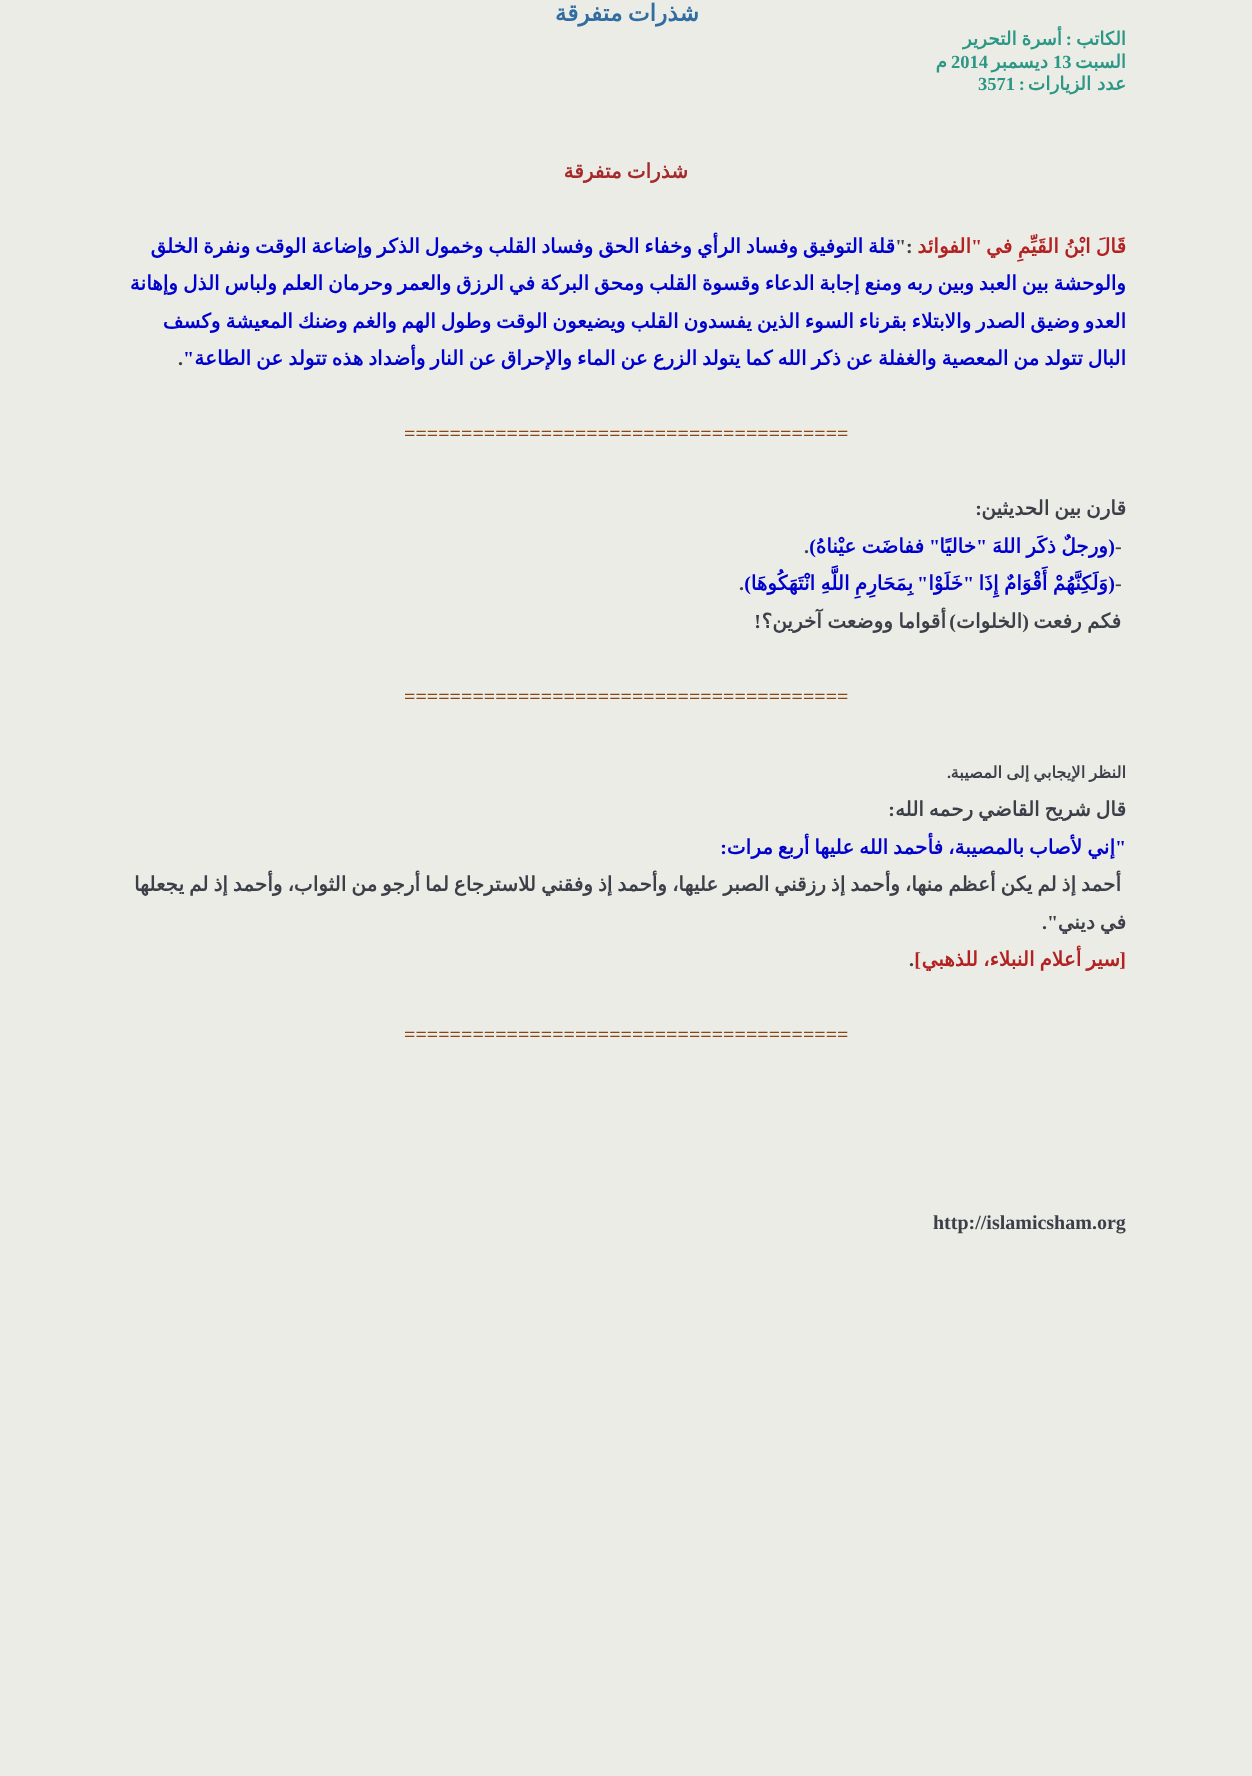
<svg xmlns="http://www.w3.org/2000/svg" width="1252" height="1776">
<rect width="100%" height="100%" fill="#ebece6"/>
<text x="699" y="21" word-spacing="-2" style="font-family:DejaVu Sans;font-size:23.25px;font-weight:bold;direction:rtl;fill:#316da1">شذرات متفرقة</text>
<text x="1126" y="45" style="font-family:DejaVu Sans;font-size:18.5px;font-weight:bold;direction:rtl;fill:#2c9785">الكاتب</text>
<text x="1072" y="45" style="font-family:Liberation Serif;font-size:18.5px;font-weight:bold;direction:rtl;fill:#2c9785">:</text>
<text x="1062" y="45" word-spacing="-1" style="font-family:DejaVu Sans;font-size:18.5px;font-weight:bold;direction:rtl;fill:#2c9785">أسرة التحرير</text>
<text x="1126" y="68" style="font-family:DejaVu Sans;font-size:18.5px;font-weight:bold;direction:rtl;fill:#2c9785">السبت</text>
<text x="1053" y="68" style="font-family:Liberation Serif;font-size:18.5px;font-weight:bold;fill:#2c9785">13</text>
<text x="1048" y="68" style="font-family:DejaVu Sans;font-size:18.5px;font-weight:bold;direction:rtl;fill:#2c9785">ديسمبر</text>
<text x="951" y="68" style="font-family:Liberation Serif;font-size:18.5px;font-weight:bold;fill:#2c9785">2014</text>
<text x="947" y="68" style="font-family:DejaVu Sans;font-size:18.5px;font-weight:bold;direction:rtl;fill:#2c9785">م</text>
<text x="1126" y="90" style="font-family:DejaVu Sans;font-size:18.5px;font-weight:bold;direction:rtl;fill:#2c9785">عدد الزيارات</text>
<text x="1025" y="90" style="font-family:Liberation Serif;font-size:18.5px;font-weight:bold;direction:rtl;fill:#2c9785">:</text>
<text x="978" y="90" style="font-family:Liberation Serif;font-size:18.5px;font-weight:bold;fill:#2c9785">3571</text>
<text x="688" y="178" word-spacing="-1.4" style="font-family:DejaVu Sans;font-size:20px;font-weight:bold;direction:rtl;fill:#a52a2a">شذرات متفرقة</text>
<text x="1126" y="253" word-spacing="-1" style="font-family:DejaVu Sans;font-size:20px;font-weight:bold;direction:rtl;fill:#b22222">ﻗَﺎﻝَ ﺍﺑْﻦُ ﺍﻟﻘَﻴِّﻢِ في</text>
<text x="971" y="253" style="font-family:DejaVu Sans;font-size:20px;font-weight:bold;direction:rtl;fill:#b22222">ﺍﻟﻔﻮﺍﺋﺪ</text>
<text x="895" y="253" style="font-family:Liberation Serif;font-size:20px;font-weight:bold;fill:#3c3f48">":</text>
<text x="895" y="253" word-spacing="-1.4" style="font-family:DejaVu Sans;font-size:20px;font-weight:bold;direction:rtl;fill:#0000cd">قلة التوفيق وفساد الرأي وخفاء الحق وفساد القلب وخمول الذكر وإضاعة الوقت ونفرة الخلق</text>
<text x="982" y="253" style="font-family:Liberation Serif;font-size:20px;font-weight:bold;direction:rtl;fill:#b22222">"</text>
<text x="1126" y="290" word-spacing="-1.4" style="font-family:DejaVu Sans;font-size:20px;font-weight:bold;direction:rtl;fill:#0000cd">والوحشة بين العبد وبين ربه ومنع إجابة الدعاء وقسوة القلب ومحق البركة في الرزق والعمر وحرمان العلم ولباس الذل وإهانة</text>
<text x="1126" y="328" word-spacing="-1.4" style="font-family:DejaVu Sans;font-size:20px;font-weight:bold;direction:rtl;fill:#0000cd">العدو وضيق الصدر والابتلاء بقرناء السوء الذين يفسدون القلب ويضيعون الوقت وطول الهم والغم وضنك المعيشة وكسف</text>
<text x="1126" y="365" word-spacing="-1.4" style="font-family:DejaVu Sans;font-size:20px;font-weight:bold;direction:rtl;fill:#0000cd">البال تتولد من المعصية والغفلة عن ذكر الله كما يتولد الزرع عن الماء والإحراق عن النار وأضداد هذه تتولد عن الطاعة</text>
<text x="194" y="365" style="font-family:Liberation Serif;font-size:20px;font-weight:bold;direction:rtl;fill:#0000cd">"</text>
<text x="178" y="365" style="font-family:Liberation Serif;font-size:20px;font-weight:bold;fill:#3c3f48">.</text>
<text x="404" y="440" style="font-family:Liberation Serif;font-size:20px;font-weight:bold;fill:#8b4513">=======================================</text>
<text x="1126" y="515" word-spacing="-1.4" style="font-family:DejaVu Sans;font-size:20px;font-weight:bold;direction:rtl;fill:#3c3f48">قارن بين الحديثين</text>
<text x="982" y="515" style="font-family:Liberation Serif;font-size:20px;font-weight:bold;direction:rtl;fill:#3c3f48">:</text>
<text x="1115" y="553" style="font-family:Liberation Serif;font-size:20px;font-weight:bold;fill:#3c3f48">-</text>
<text x="1108" y="553" word-spacing="-1" style="font-family:DejaVu Sans;font-size:20px;font-weight:bold;direction:rtl;fill:#0000cd">ورجلٌ ذكَر اللهَ</text>
<text x="1115" y="553" style="font-family:Liberation Serif;font-size:20px;font-weight:bold;direction:rtl;fill:#0000cd">(</text>
<text x="987" y="553" style="font-family:Liberation Serif;font-size:20px;font-weight:bold;direction:rtl;fill:#0000cd">"</text>
<text x="976" y="553" style="font-family:DejaVu Sans;font-size:20px;font-weight:bold;direction:rtl;fill:#0000cd">خاليًا</text>
<text x="940" y="553" style="font-family:Liberation Serif;font-size:20px;font-weight:bold;direction:rtl;fill:#0000cd">"</text>
<text x="924" y="553" word-spacing="-1" style="font-family:DejaVu Sans;font-size:20px;font-weight:bold;direction:rtl;fill:#0000cd">ففاضَت عيْناهُ</text>
<text x="816" y="553" style="font-family:Liberation Serif;font-size:20px;font-weight:bold;direction:rtl;fill:#0000cd">)</text>
<text x="804" y="553" style="font-family:Liberation Serif;font-size:20px;font-weight:bold;fill:#3c3f48">.</text>
<text x="1115" y="590" style="font-family:Liberation Serif;font-size:20px;font-weight:bold;fill:#3c3f48">-</text>
<text x="1108" y="590" word-spacing="-1" style="font-family:DejaVu Sans;font-size:20px;font-weight:bold;direction:rtl;fill:#0000cd">وَلَكِنَّهُمْ أَقْوَامٌ إِذَا</text>
<text x="1115" y="590" style="font-family:Liberation Serif;font-size:20px;font-weight:bold;direction:rtl;fill:#0000cd">(</text>
<text x="974" y="590" style="font-family:Liberation Serif;font-size:20px;font-weight:bold;direction:rtl;fill:#0000cd">"</text>
<text x="963" y="590" style="font-family:DejaVu Sans;font-size:20px;font-weight:bold;direction:rtl;fill:#0000cd">خَلَوْا</text>
<text x="928" y="590" style="font-family:Liberation Serif;font-size:20px;font-weight:bold;direction:rtl;fill:#0000cd">"</text>
<text x="913" y="590" word-spacing="-1" style="font-family:DejaVu Sans;font-size:20px;font-weight:bold;direction:rtl;fill:#0000cd">بِمَحَارِمِ اللَّهِ انْتَهَكُوهَا</text>
<text x="751" y="590" style="font-family:Liberation Serif;font-size:20px;font-weight:bold;direction:rtl;fill:#0000cd">)</text>
<text x="739" y="590" style="font-family:Liberation Serif;font-size:20px;font-weight:bold;fill:#3c3f48">.</text>
<text x="1121" y="628" word-spacing="-1" style="font-family:DejaVu Sans;font-size:20px;font-weight:bold;direction:rtl;fill:#3c3f48">فكم رفعت</text>
<text x="1029" y="628" style="font-family:Liberation Serif;font-size:20px;font-weight:bold;direction:rtl;fill:#3c3f48">(</text>
<text x="1022" y="628" style="font-family:DejaVu Sans;font-size:20px;font-weight:bold;direction:rtl;fill:#3c3f48">الخلوات</text>
<text x="956" y="628" style="font-family:Liberation Serif;font-size:20px;font-weight:bold;direction:rtl;fill:#3c3f48">)</text>
<text x="946" y="628" word-spacing="-1" style="font-family:DejaVu Sans;font-size:20px;font-weight:bold;direction:rtl;fill:#3c3f48">أقواما ووضعت آخرين؟</text>
<text x="761" y="628" style="font-family:Liberation Serif;font-size:20px;font-weight:bold;direction:rtl;fill:#3c3f48">!</text>
<text x="404" y="703" style="font-family:Liberation Serif;font-size:20px;font-weight:bold;fill:#8b4513">=======================================</text>
<text x="1126" y="778" word-spacing="-1" style="font-family:DejaVu Sans;font-size:16.25px;font-weight:bold;direction:rtl;fill:#3c3f48">النظر الإيجابي إلى المصيبة</text>
<text x="951" y="778" style="font-family:Liberation Serif;font-size:16.25px;font-weight:bold;direction:rtl;fill:#3c3f48">.</text>
<text x="1126" y="816" word-spacing="-1.4" style="font-family:DejaVu Sans;font-size:20px;font-weight:bold;direction:rtl;fill:#3c3f48">قال شريح القاضي رحمه الله</text>
<text x="895" y="816" style="font-family:Liberation Serif;font-size:20px;font-weight:bold;direction:rtl;fill:#3c3f48">:</text>
<text x="1115" y="854" word-spacing="-1.4" style="font-family:DejaVu Sans;font-size:20px;font-weight:bold;direction:rtl;fill:#0000cd">إني لأصاب بالمصيبة، فأحمد الله عليها أربع مرات</text>
<text x="1126" y="854" style="font-family:Liberation Serif;font-size:20px;font-weight:bold;direction:rtl;fill:#0000cd">"</text>
<text x="727" y="854" style="font-family:Liberation Serif;font-size:20px;font-weight:bold;direction:rtl;fill:#0000cd">:</text>
<text x="1121" y="891" word-spacing="-1.4" style="font-family:DejaVu Sans;font-size:20px;font-weight:bold;direction:rtl;fill:#3c3f48">أحمد إذ لم يكن أعظم منها، وأحمد إذ رزقني الصبر عليها، وأحمد إذ وفقني للاسترجاع لما أرجو من الثواب، وأحمد إذ لم يجعلها</text>
<text x="1126" y="929" word-spacing="-1.4" style="font-family:DejaVu Sans;font-size:20px;font-weight:bold;direction:rtl;fill:#3c3f48">في ديني</text>
<text x="1058" y="929" style="font-family:Liberation Serif;font-size:20px;font-weight:bold;direction:rtl;fill:#3c3f48">".</text>
<text x="1120" y="966" word-spacing="-1.4" style="font-family:DejaVu Sans;font-size:20px;font-weight:bold;direction:rtl;fill:#b22222">سير أعلام النبلاء، للذهبي</text>
<text x="1126" y="966" style="font-family:Liberation Serif;font-size:20px;font-weight:bold;direction:rtl;fill:#b22222">[</text>
<text x="921" y="966" style="font-family:Liberation Serif;font-size:20px;font-weight:bold;direction:rtl;fill:#b22222">]</text>
<text x="909" y="966" style="font-family:Liberation Serif;font-size:20px;font-weight:bold;fill:#3c3f48">.</text>
<text x="404" y="1041" style="font-family:Liberation Serif;font-size:20px;font-weight:bold;fill:#8b4513">=======================================</text>
<text x="933" y="1229" style="font-family:Liberation Serif;font-size:20px;font-weight:bold;fill:#3c3f48">http://islamicsham.org</text>
</svg>
